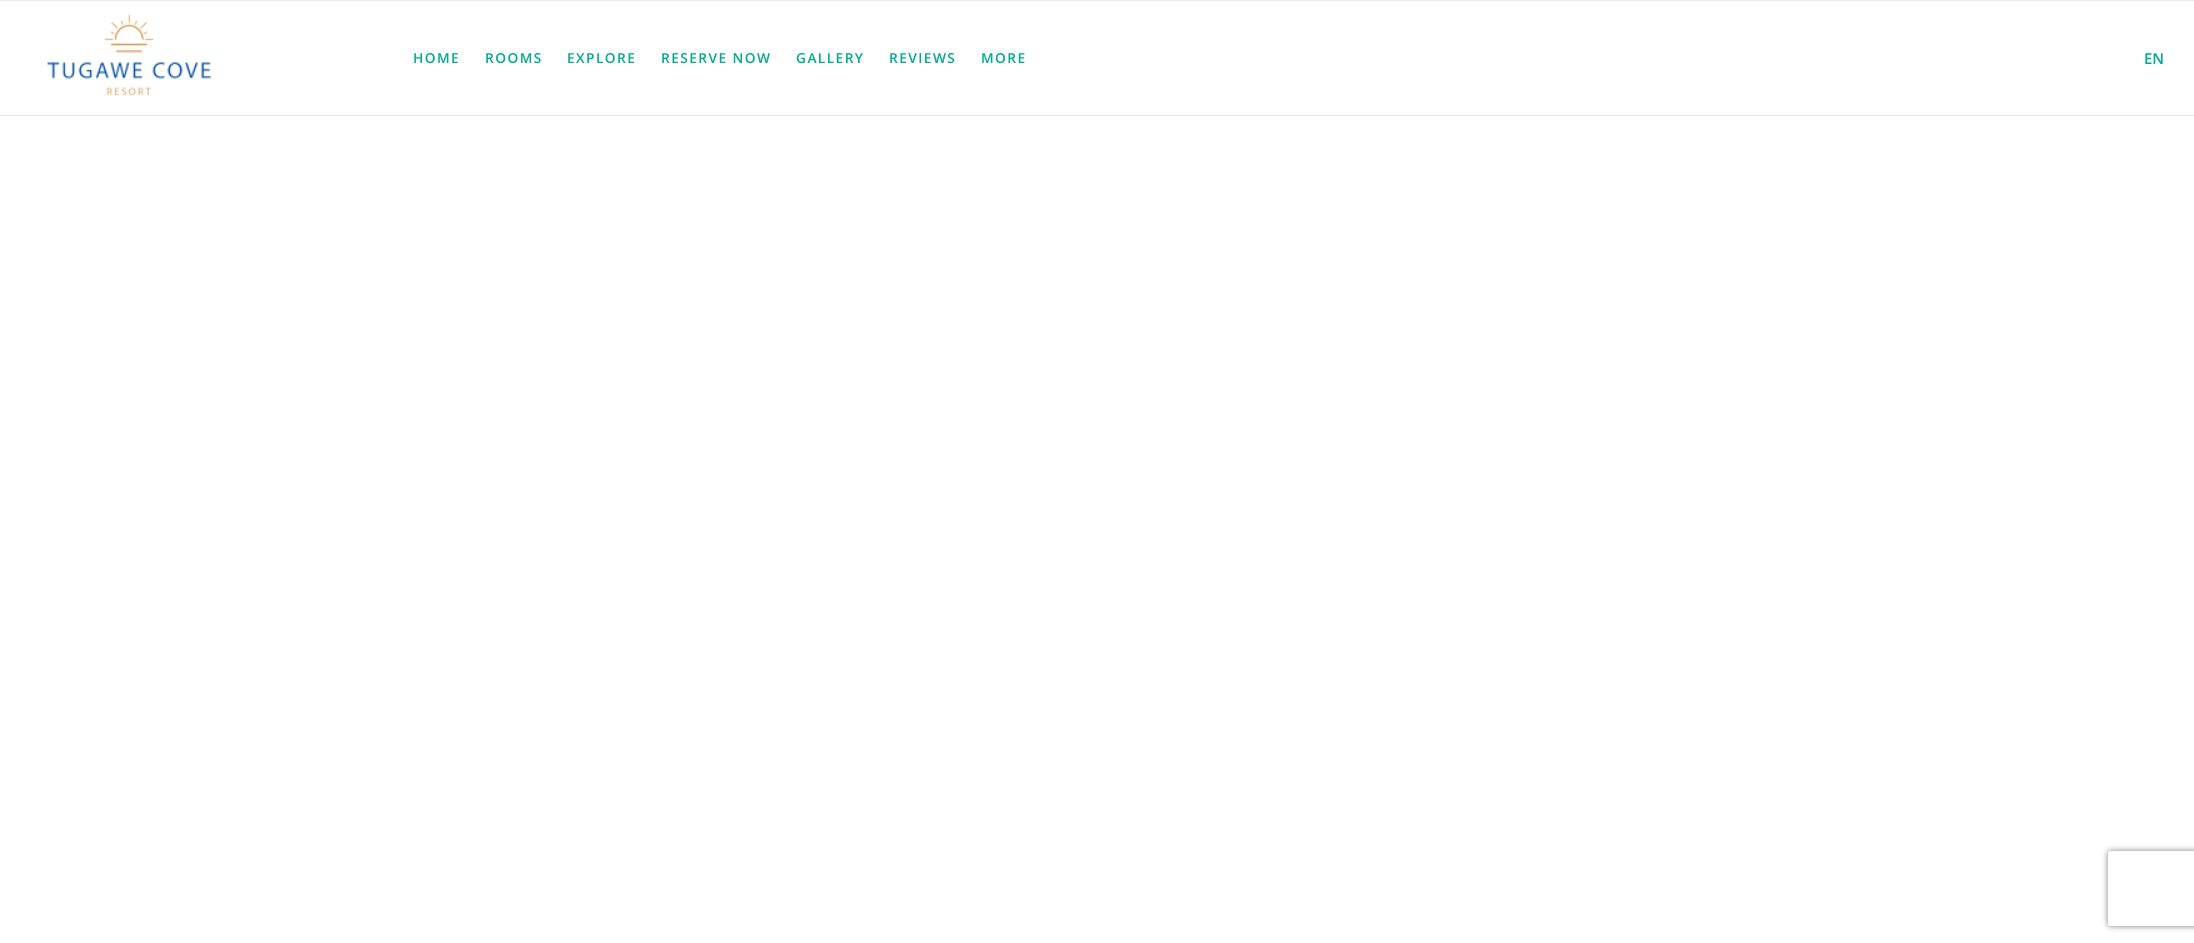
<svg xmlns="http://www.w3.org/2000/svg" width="2194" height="943">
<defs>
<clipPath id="clip1"><path d="M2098 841h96v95h-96zm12.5 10h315c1.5 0 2.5 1 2.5 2.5v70c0 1.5-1 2.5-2.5 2.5h-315c-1.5 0-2.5-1-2.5-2.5v-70c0-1.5 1-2.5 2.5-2.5z" clip-rule="evenodd"/></clipPath>
</defs>
<rect width="100%" height="100%" fill="#fff"/>
<rect width="2194" height="1" fill="#eaeaea"/>
<rect y="115" width="2194" height="1" fill="#eaeaea"/>
<image x="47" y="14" width="165" height="82" href="media/1.png"/>
<text x="413" y="63" style="font-family:Open Sans;font-size:13.75px;font-weight:600;letter-spacing:1.4px;fill:#00ac8d">HOME</text>
<text x="485" y="63" style="font-family:Open Sans;font-size:13.75px;font-weight:600;letter-spacing:1.4px;fill:#00ac8d">ROOMS</text>
<text x="567" y="63" style="font-family:Open Sans;font-size:13.75px;font-weight:600;letter-spacing:1.4px;fill:#00ac8d">EXPLORE</text>
<text x="661" y="63" style="font-family:Open Sans;font-size:13.75px;font-weight:600;letter-spacing:1.4px;fill:#00ac8d">RESERVE NOW</text>
<text x="796" y="63" style="font-family:Open Sans;font-size:13.75px;font-weight:600;letter-spacing:1.4px;fill:#00ac8d">GALLERY</text>
<text x="889" y="63" style="font-family:Open Sans;font-size:13.75px;font-weight:600;letter-spacing:1.4px;fill:#00ac8d">REVIEWS</text>
<text x="981" y="63" style="font-family:Open Sans;font-size:13.75px;font-weight:600;letter-spacing:1.4px;fill:#00ac8d">MORE</text>
<text x="2144" y="64" style="font-family:Open Sans;font-size:15px;font-weight:600;fill:#00ac8d">EN</text>
<g clip-path="url(#clip1)">
<rect x="2108" y="851" width="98" height="75" rx="2.5" fill="#808080" filter="blur(3px)"/>
</g>
</svg>
